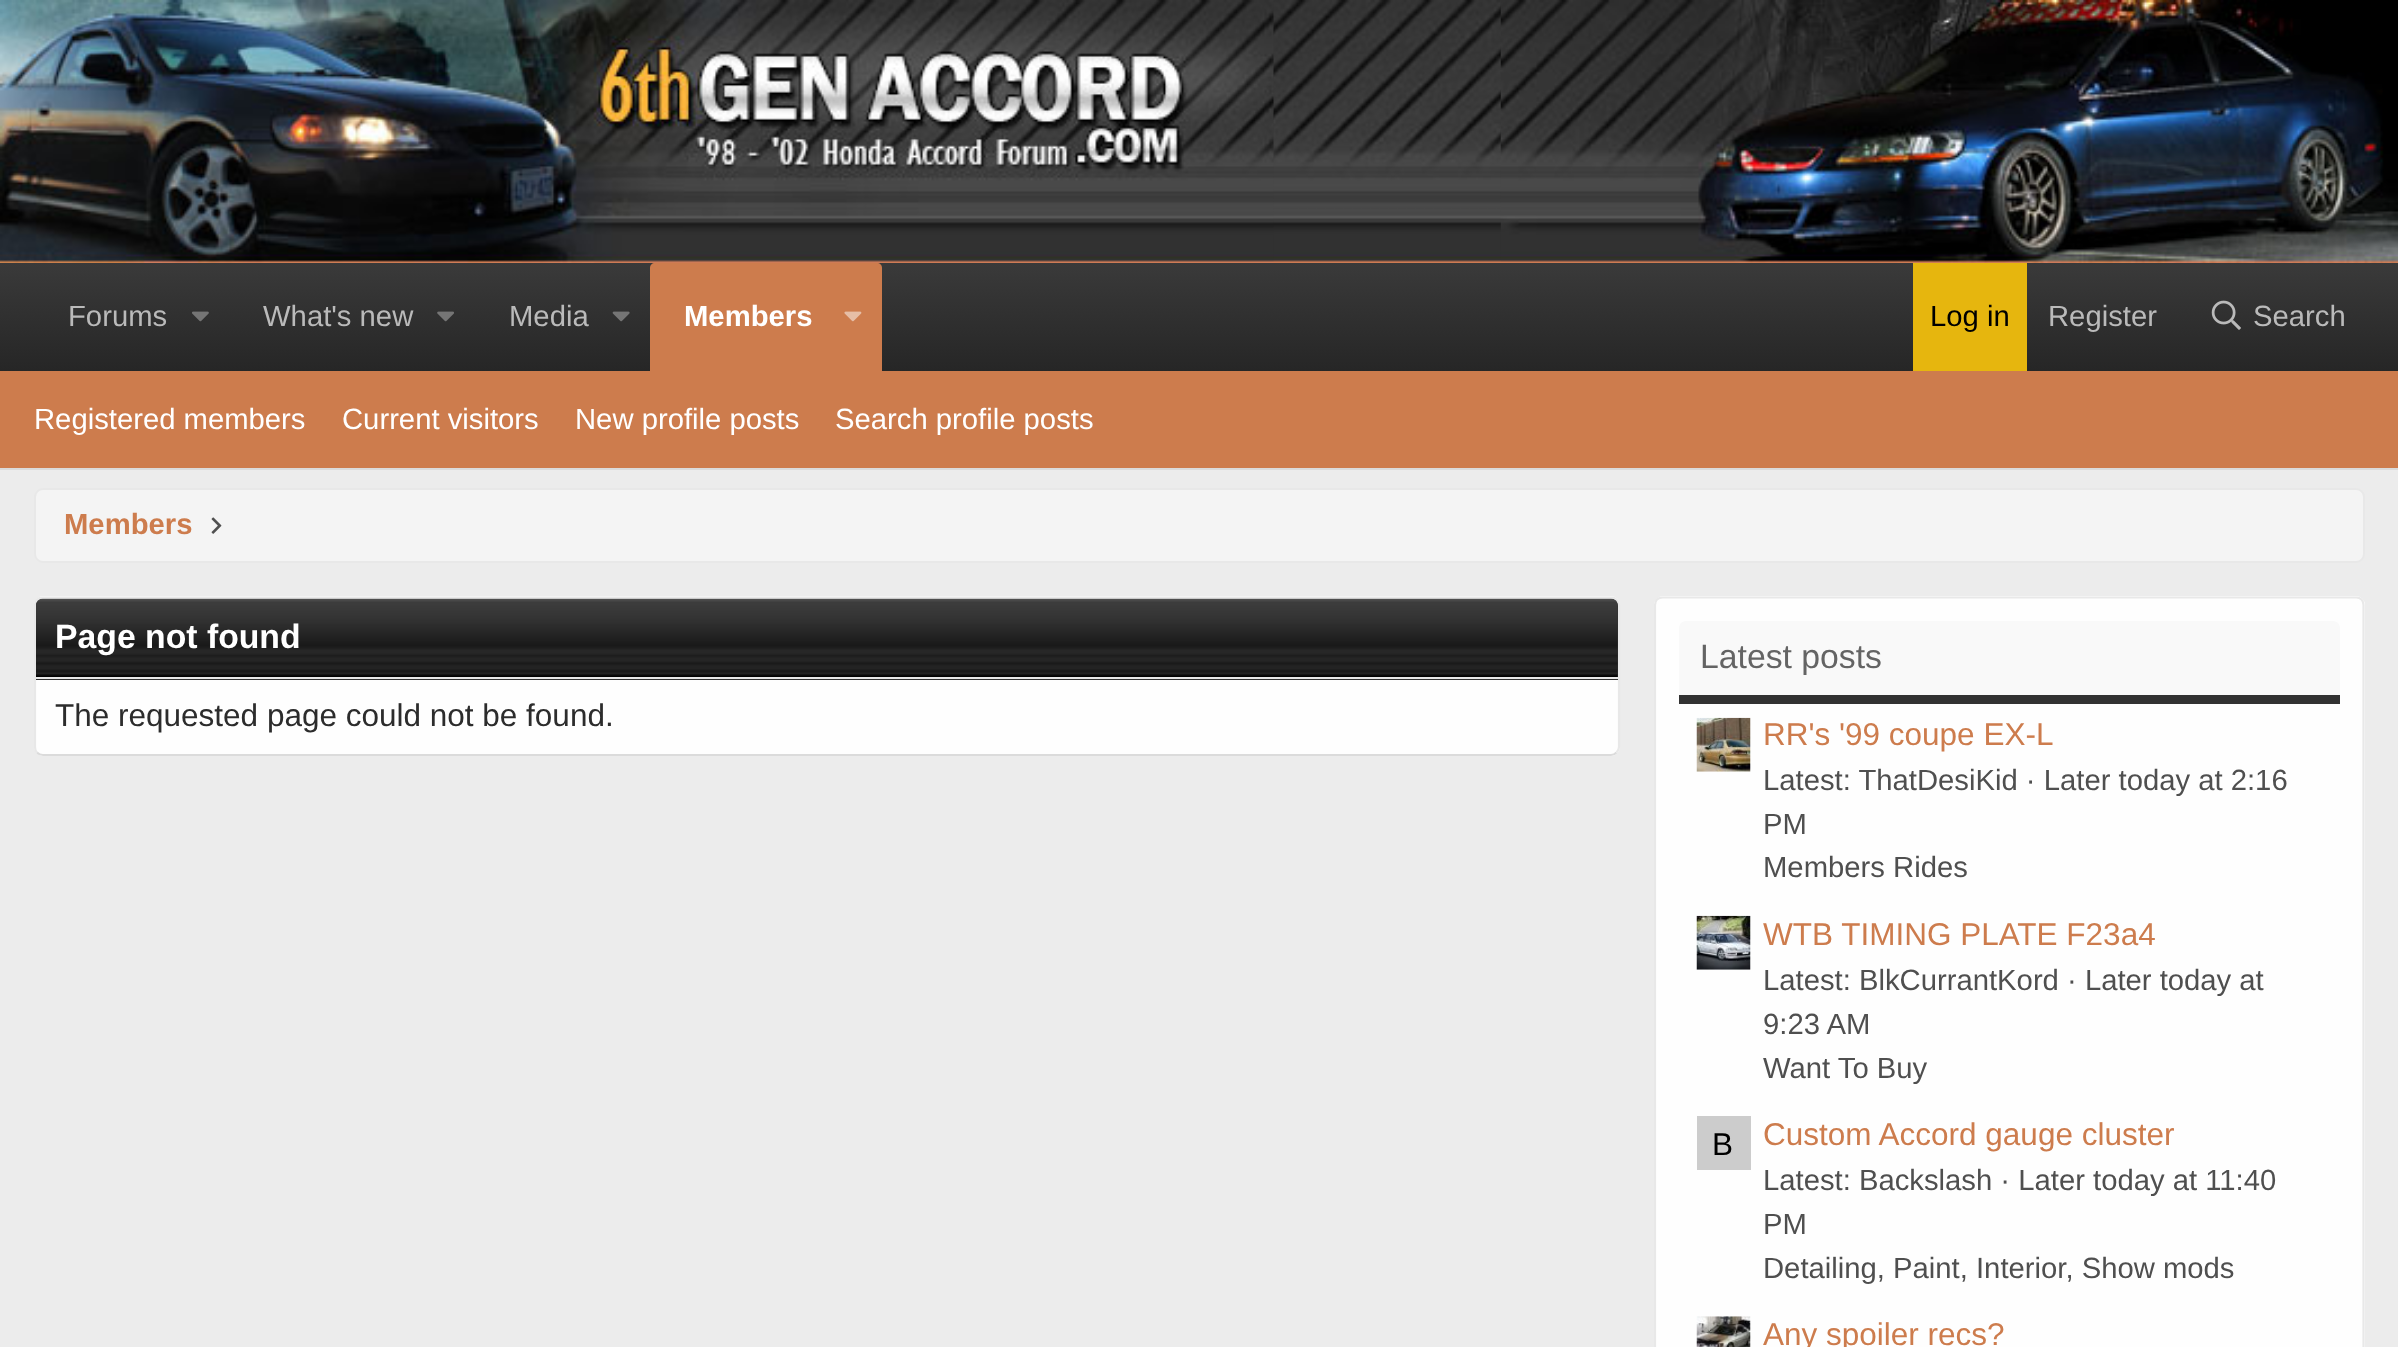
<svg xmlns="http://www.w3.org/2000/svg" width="2398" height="1347">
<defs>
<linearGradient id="g1" gradientUnits="userSpaceOnUse" x1="1199" y1="263" x2="1199" y2="371"><stop offset="0" stop-color="#3a3a3a"/><stop offset="1" stop-color="#262626"/></linearGradient>
</defs>
<rect width="100%" height="100%" fill="#ececec"/>
<image x="1273" y="0" width="228" height="263" href="media/1.png"/>
<image x="0" y="0" width="1274" height="263" href="media/2.png"/>
<image x="1500" y="0" width="898" height="263" href="media/3.png"/>
<rect y="263" width="2398" height="108" fill="url(#g1)"/>
<text x="68" y="326" style="font-family:Liberation Sans;font-size:29.25px;fill:#bababa">Forums</text>
<image x="192" y="311" width="17" height="11" href="media/4.png"/>
<text x="263" y="326" style="font-family:Liberation Sans;font-size:29.25px;fill:#bababa">What's new</text>
<image x="437" y="311" width="17" height="11" href="media/5.png"/>
<text x="509" y="326" style="font-family:Liberation Sans;font-size:29.25px;fill:#bababa">Media</text>
<image x="612" y="311" width="18" height="11" href="media/6.png"/>
<path d="M655 263h222c3 0 5 2 5 5v103h-232v-103c0-3 2-5 5-5z" fill="#cd7c4d"/>
<text x="684" y="326" style="font-family:Liberation Sans;font-size:29.25px;font-weight:bold;fill:#fff">Members</text>
<image x="844" y="311" width="18" height="11" href="media/7.png"/>
<rect x="1913" y="263" width="114" height="108" fill="#e6b60e"/>
<text x="1930" y="326" style="font-family:Liberation Sans;font-size:29.25px;fill:#000">Log in</text>
<text x="2048" y="326" style="font-family:Liberation Sans;font-size:29.25px;fill:#bababa">Register</text>
<image x="2211" y="300" width="30" height="30" href="media/8.png"/>
<text x="2253" y="326" style="font-family:Liberation Sans;font-size:29.25px;fill:#bababa">Search</text>
<rect y="371" width="2398" height="97" fill="#cd7c4d"/>
<rect y="468" width="2398" height="2" fill="#dbdbdb"/>
<text x="34" y="429" style="font-family:Liberation Sans;font-size:29.25px;fill:#fff">Registered members</text>
<text x="342" y="429" style="font-family:Liberation Sans;font-size:29.25px;fill:#fff">Current visitors</text>
<text x="575" y="429" style="font-family:Liberation Sans;font-size:29.25px;fill:#fff">New profile posts</text>
<text x="835" y="429" style="font-family:Liberation Sans;font-size:29.25px;fill:#fff">Search profile posts</text>
<rect x="35" y="489" width="2329" height="73" rx="8" fill="#f4f4f4" stroke="#e8e8e8" stroke-width="2"/>
<text x="64" y="534" style="font-family:Liberation Sans;font-size:29.25px;font-weight:bold;fill:#cd7c4d">Members</text>
<image x="211" y="517" width="11" height="17" href="media/9.png"/>
<rect x="34" y="596" width="1586" height="160" rx="9" fill="#fefefe"/>
<path d="M1616.5 752.5c-1.5 1.5-3.5 2.5-5.5 2.5h-1568c-2.5 0-4.5-1-6-2.5" fill="none" stroke="#dbdbdb" stroke-width="2.2"/>
<path d="M37 752.5c-1.5-1.5-2-3.5-2-5.5v-142c0-2 .5-4 2-5.5c1.5-1.5 3.5-2 6-2h1568c2 0 4 .5 5.5 2c1.5 1.5 2.5 3.5 2.5 5.5v142c0 2-1 4-2.5 5.5" fill="none" stroke="#e8e8e8" stroke-width="2.2"/>
<path d="M43 599h1568c4 0 7 3 7 7v74h-1582v-74c0-4 3-7 7-7z" fill="#323232"/>
<image x="36" y="598" width="1582" height="79" href="media/10.png"/>
<rect x="36" y="677" width="1582" height="2" fill="#e8e8e8"/>
<text x="55" y="648" style="font-family:Liberation Sans;font-size:33.75px;font-weight:bold;fill:#fff">Page not found</text>
<text x="55" y="726" style="font-family:Liberation Sans;font-size:31.5px;fill:#2c2c2c">The requested page could not be found.</text>
<rect x="1654" y="596" width="711" height="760" rx="9" fill="#fefefe"/>
<path d="M1657 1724.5c-1.5-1.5-2-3.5-2-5.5v-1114c0-2 .5-4 2-5.5c1.5-1.5 3.5-2 6-2h693c2 0 4 .5 5.5 2c1.5 1.5 2 3.5 2 5.5v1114c0 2-.5 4-2 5.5" fill="none" stroke="#e8e8e8" stroke-width="2.2"/>
<path d="M1686 621h647c4 0 7 3 7 7v76h-661v-76c0-4 3-7 7-7z" fill="#f9f9f9"/>
<rect x="1679" y="695" width="661" height="9" fill="#323232"/>
<text x="1700" y="668" style="font-family:Liberation Sans;font-size:33.75px;fill:#646464">Latest posts</text>
<image x="1696" y="717" width="55" height="55" href="media/11.png"/>
<text x="1763" y="745" style="font-family:Liberation Sans;font-size:31.5px;fill:#cd7c4d">RR's '99 coupe EX-L</text>
<text x="1763" y="790" style="font-family:Liberation Sans;font-size:29.25px;fill:#4f4f4f">Latest: ThatDesiKid · Later today at 2:16</text>
<text x="1763" y="834" style="font-family:Liberation Sans;font-size:29.25px;fill:#4f4f4f">PM</text>
<text x="1763" y="877" style="font-family:Liberation Sans;font-size:29.25px;fill:#4f4f4f">Members Rides</text>
<image x="1696" y="915" width="55" height="55" href="media/12.png"/>
<text x="1763" y="945" style="font-family:Liberation Sans;font-size:31.5px;fill:#cd7c4d">WTB TIMING PLATE F23a4</text>
<text x="1763" y="990" style="font-family:Liberation Sans;font-size:29.25px;fill:#4f4f4f">Latest: BlkCurrantKord · Later today at</text>
<text x="1763" y="1034" style="font-family:Liberation Sans;font-size:29.25px;fill:#4f4f4f">9:23 AM</text>
<text x="1763" y="1078" style="font-family:Liberation Sans;font-size:29.25px;fill:#4f4f4f">Want To Buy</text>
<rect x="1697" y="1116" width="54" height="54" fill="#ccc"/>
<text x="1712" y="1155" style="font-family:Liberation Sans;font-size:31.5px;fill:#000">B</text>
<text x="1763" y="1145" style="font-family:Liberation Sans;font-size:31.5px;fill:#cd7c4d">Custom Accord gauge cluster</text>
<text x="1763" y="1190" style="font-family:Liberation Sans;font-size:29.25px;fill:#4f4f4f">Latest: Backslash · Later today at 11:40</text>
<text x="1763" y="1234" style="font-family:Liberation Sans;font-size:29.25px;fill:#4f4f4f">PM</text>
<text x="1763" y="1278" style="font-family:Liberation Sans;font-size:29.25px;fill:#4f4f4f">Detailing, Paint, Interior, Show mods</text>
<image x="1696" y="1316" width="55" height="31" href="media/13.png"/>
<text x="1763" y="1345" style="font-family:Liberation Sans;font-size:31.5px;fill:#cd7c4d">Any spoiler recs?</text>
</svg>
